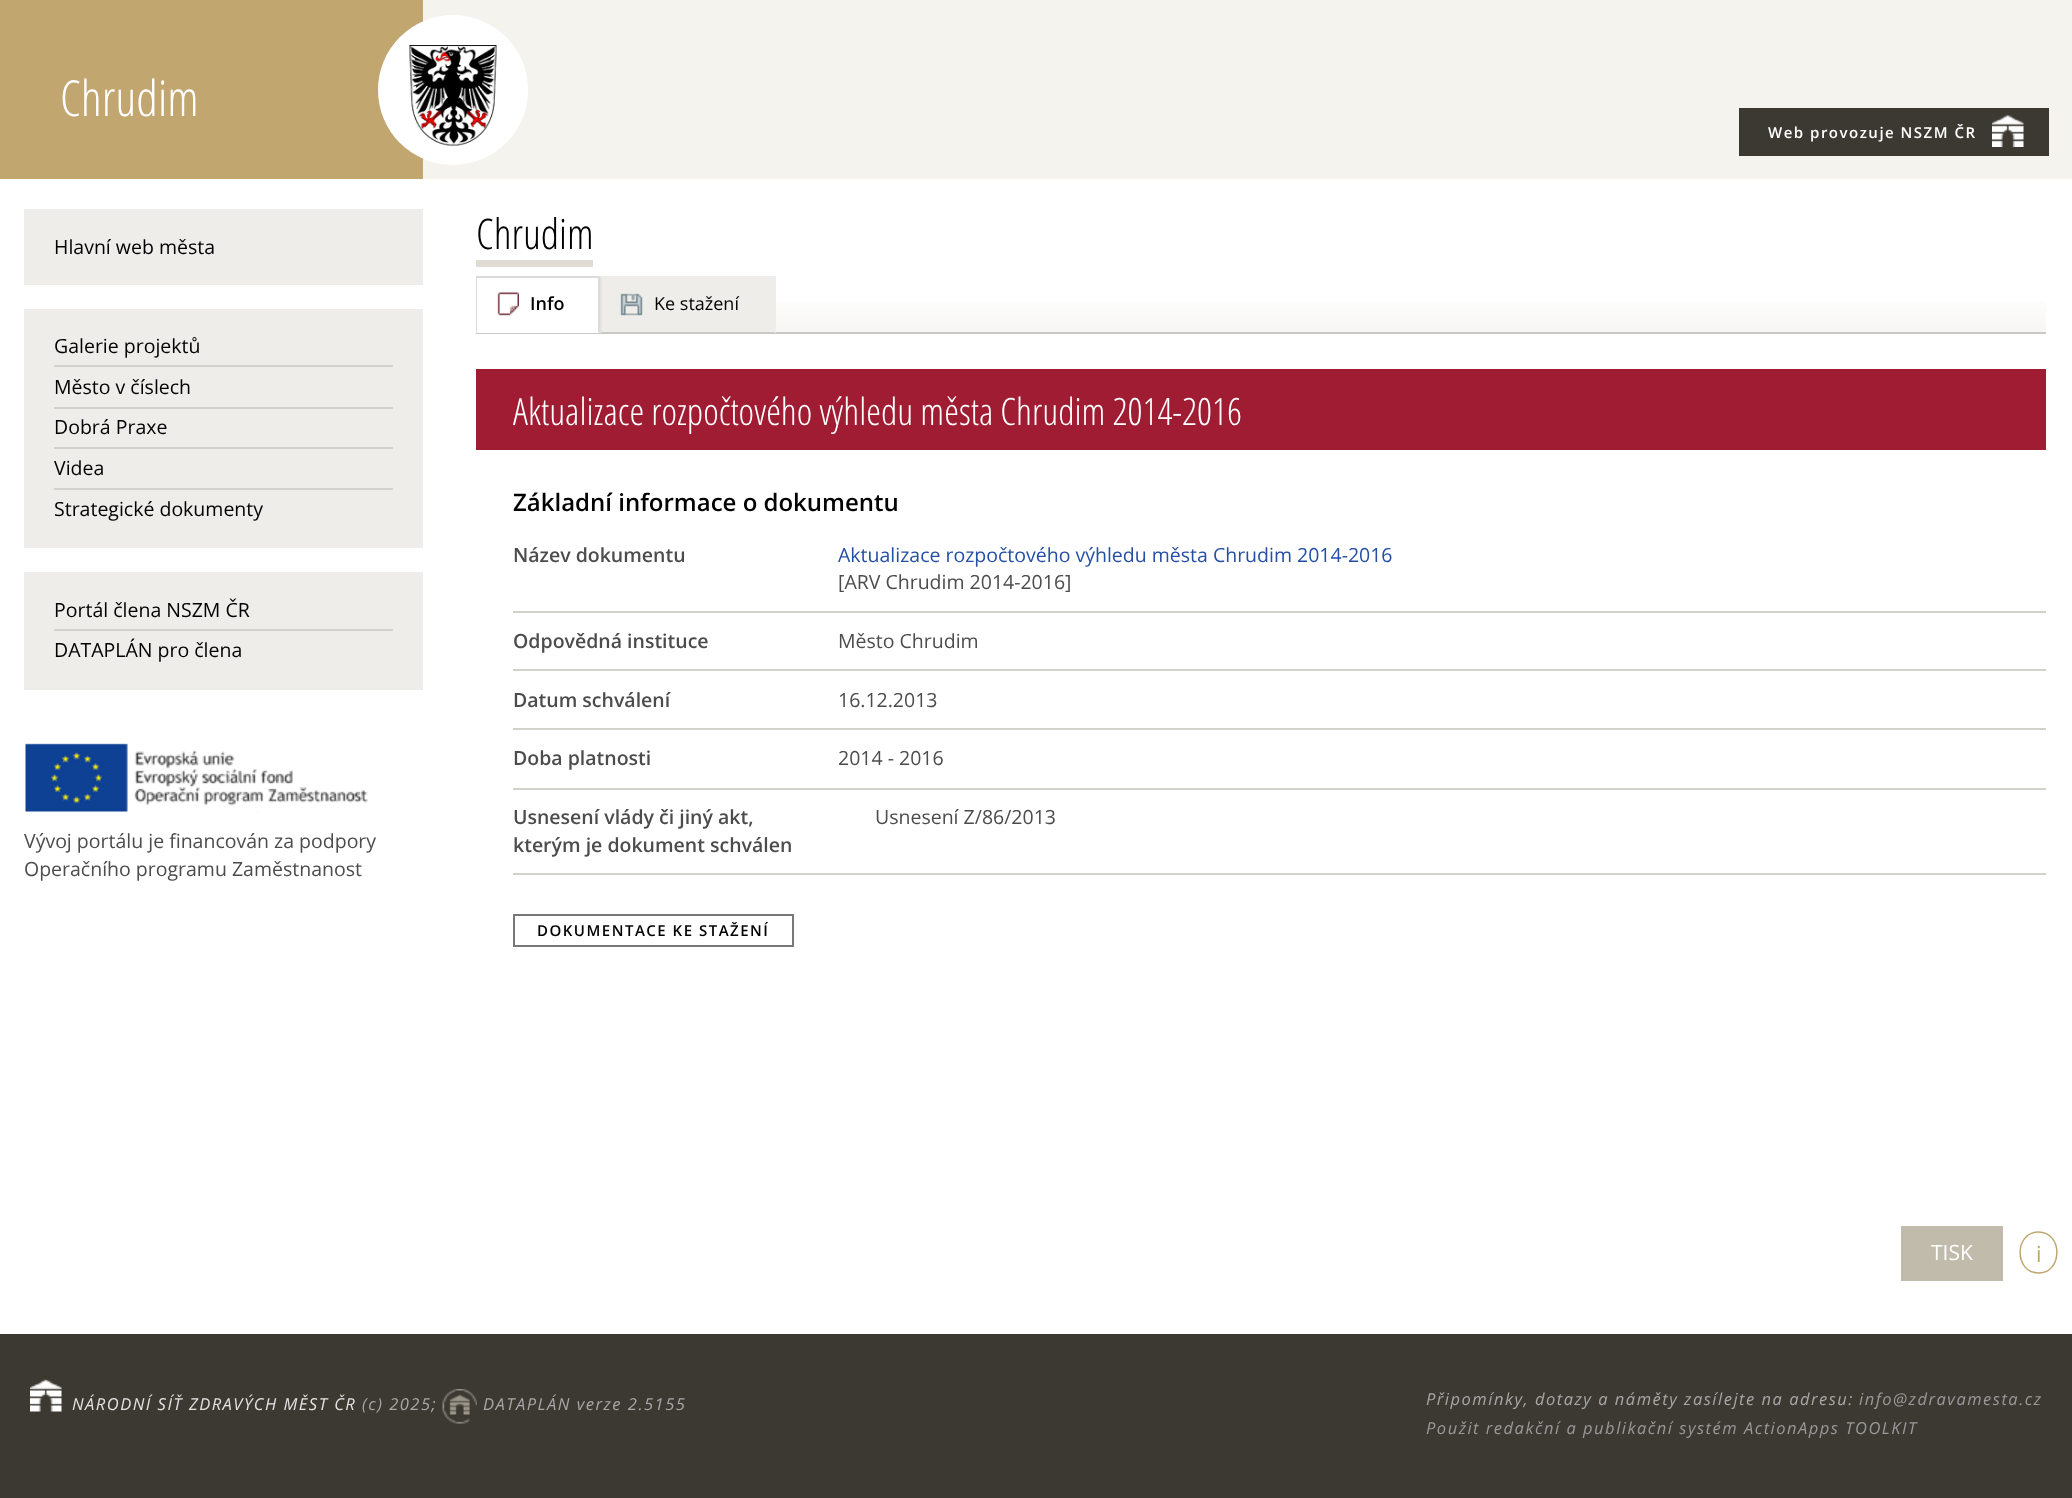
<svg xmlns="http://www.w3.org/2000/svg" width="2072" height="1498">
<defs>
<linearGradient id="g1" gradientUnits="userSpaceOnUse" x1="1261" y1="274" x2="1261" y2="332"><stop offset="0" stop-color="#fff"/><stop offset="0.3" stop-color="#fff"/><stop offset="1" stop-color="#f7f6f4"/></linearGradient>
</defs>
<rect width="100%" height="100%" fill="#fff"/>
<rect x="423" width="1649" height="179" fill="#f5f3ee"/>
<rect width="423" height="179" fill="#c1a670"/>
<text x="60" y="116" style="font-family:Open Sans Condensed;font-size:49.5px;font-weight:300;fill:#fff">Chrudim</text>
<circle cx="453" cy="90" r="75" fill="#fff"/>
<image x="409" y="45" width="88" height="101" href="media/1.png"/>
<rect x="1739" y="108" width="310" height="48" fill="#3c3933"/>
<text x="1768" y="138" style="font-family:Open Sans;font-size:15px;font-weight:600;letter-spacing:1.5px;fill:#fff">Web provozuje NSZM ČR</text>
<image x="1992" y="115" width="32" height="32" href="media/2.png"/>
<rect x="24" y="209" width="399" height="76" fill="#efede9"/>
<text x="54" y="254" style="font-family:Open Sans;font-size:19.5px;fill:#000">Hlavní web města</text>
<rect x="24" y="309" width="399" height="239" fill="#efede9"/>
<text x="54" y="353" style="font-family:Open Sans;font-size:19.5px;fill:#000">Galerie projektů</text>
<rect x="54" y="365" width="339" height="2" fill="#d3d1cc"/>
<text x="54" y="394" style="font-family:Open Sans;font-size:19.5px;fill:#000">Město v číslech</text>
<rect x="54" y="407" width="339" height="2" fill="#d3d1cc"/>
<text x="54" y="434" style="font-family:Open Sans;font-size:19.5px;fill:#000">Dobrá Praxe</text>
<rect x="54" y="447" width="339" height="2" fill="#d3d1cc"/>
<text x="54" y="475" style="font-family:Open Sans;font-size:19.5px;fill:#000">Videa</text>
<rect x="54" y="488" width="339" height="2" fill="#d3d1cc"/>
<text x="54" y="516" style="font-family:Open Sans;font-size:19.5px;fill:#000">Strategické dokumenty</text>
<rect x="24" y="572" width="399" height="118" fill="#efede9"/>
<text x="54" y="617" style="font-family:Open Sans;font-size:19.5px;fill:#000">Portál člena NSZM ČR</text>
<rect x="54" y="629" width="339" height="2" fill="#d3d1cc"/>
<text x="54" y="657" style="font-family:Open Sans;font-size:19.5px;fill:#000">DATAPLÁN pro člena</text>
<image x="25" y="743" width="343" height="70" href="media/3.png"/>
<text x="24" y="848" style="font-family:Open Sans;font-size:19.5px;fill:#4c4c4c">Vývoj portálu je financován za podpory</text>
<text x="24" y="876" style="font-family:Open Sans;font-size:19.5px;fill:#4c4c4c">Operačního programu Zaměstnanost</text>
<rect x="476" y="260" width="117" height="7" fill="#e1dcd3"/>
<text x="476" y="249" style="font-family:Open Sans Condensed;font-size:42px;font-weight:300;fill:#000">Chrudim</text>
<rect x="476" y="301" width="1570" height="31" fill="url(#g1)"/>
<rect x="476" y="332" width="1570" height="2" fill="#c9c8c5"/>
<rect x="476" y="301" width="124" height="32" fill="#fff"/>
<rect x="476" y="276" width="124" height="2" fill="#dcdbdb"/>
<path d="M600 276v57l-2-1v-54z" fill="#dcdbdb"/>
<path d="M476 333v-57l1 2v54z" fill="#dcdbdb"/>
<image x="497" y="292" width="22" height="24" href="media/4.png"/>
<text x="530" y="310" style="font-family:Open Sans;font-size:18px;font-weight:600;fill:#000">Info</text>
<rect x="600" y="276" width="176" height="57" fill="#efede9"/>
<path d="M776 333h-176l2-1h172z" fill="#c9c8c5"/>
<path d="M600 333v-57l2 2v54z" fill="#e7e4dd"/>
<image x="620" y="293" width="23" height="23" href="media/5.png"/>
<text x="654" y="310" style="font-family:Open Sans;font-size:18px;fill:#000">Ke stažení</text>
<rect x="476" y="369" width="1570" height="81" fill="#9f1c32"/>
<text x="513" y="425" style="font-family:Open Sans Condensed;font-size:37.5px;font-weight:300;fill:#fff">Aktualizace rozpočtového výhledu města Chrudim 2014-2016</text>
<text x="513" y="511" style="font-family:Open Sans;font-size:24px;font-weight:600;fill:#000">Základní informace o dokumentu</text>
<rect x="513" y="611" width="1533" height="2" fill="#d3d1cc"/>
<text x="513" y="562" style="font-family:Open Sans;font-size:19.5px;font-weight:600;fill:#4c4c4c">Název dokumentu</text>
<text x="838" y="562" style="font-family:Open Sans;font-size:19.5px;fill:#244fa5">Aktualizace rozpočtového výhledu města Chrudim 2014-2016</text>
<text x="838" y="589" style="font-family:Open Sans;font-size:19.5px;fill:#4c4c4c">[ARV Chrudim 2014-2016]</text>
<rect x="513" y="669" width="1533" height="2" fill="#d3d1cc"/>
<text x="513" y="648" style="font-family:Open Sans;font-size:19.5px;font-weight:600;fill:#4c4c4c">Odpovědná instituce</text>
<text x="838" y="648" style="font-family:Open Sans;font-size:19.5px;fill:#4c4c4c">Město Chrudim</text>
<rect x="513" y="728" width="1533" height="2" fill="#d3d1cc"/>
<text x="513" y="707" style="font-family:Open Sans;font-size:19.5px;font-weight:600;fill:#4c4c4c">Datum schválení</text>
<text x="838" y="707" style="font-family:Open Sans;font-size:19.5px;fill:#4c4c4c">16.12.2013</text>
<rect x="513" y="788" width="1533" height="2" fill="#d3d1cc"/>
<text x="513" y="765" style="font-family:Open Sans;font-size:19.5px;font-weight:600;fill:#4c4c4c">Doba platnosti</text>
<text x="838" y="765" style="font-family:Open Sans;font-size:19.5px;fill:#4c4c4c">2014 - 2016</text>
<rect x="513" y="873" width="1533" height="2" fill="#d3d1cc"/>
<text x="513" y="824" style="font-family:Open Sans;font-size:19.5px;font-weight:600;fill:#4c4c4c">Usnesení vlády či jiný akt,</text>
<text x="513" y="852" style="font-family:Open Sans;font-size:19.5px;font-weight:600;fill:#4c4c4c">kterým je dokument schválen</text>
<text x="875" y="824" style="font-family:Open Sans;font-size:19.5px;fill:#4c4c4c">Usnesení Z/86/2013</text>
<rect x="514" y="915" width="279" height="31" fill="none" stroke="#787878" stroke-width="2"/>
<text x="537" y="936" style="font-family:Open Sans;font-size:15px;font-weight:600;letter-spacing:1.5px;fill:#000">DOKUMENTACE KE STAŽENÍ</text>
<rect x="1901" y="1226" width="102" height="55" fill="#c1bbac"/>
<text x="1931" y="1260" style="font-family:Open Sans;font-size:21px;fill:#fff">TISK</text>
<path d="M2038.5 1232c24.5 0 24.5 41 0 41c-24.5 0-24.5-41 0-41z" fill="none" stroke="#c1a670" stroke-width="1.5"/>
<text x="2036" y="1262" style="font-family:Open Sans;font-size:22px;fill:#c1a670">i</text>
<rect y="1334" width="2072" height="164" fill="#3c3933"/>
<image x="30" y="1379" width="32" height="33" href="media/6.png"/>
<text x="72" y="1410" style="font-family:Open Sans;font-size:16.5px;font-style:italic;letter-spacing:1.5px;fill:#e4e3e2">NÁRODNÍ SÍŤ ZDRAVÝCH MĚST ČR</text>
<text x="362" y="1410" style="font-family:Open Sans;font-size:16.5px;font-style:italic;letter-spacing:1.5px;fill:#a7a7a7">(c) 2025;</text>
<image x="442" y="1389" width="35" height="35" href="media/7.png"/>
<text x="483" y="1410" style="font-family:Open Sans;font-size:16.5px;font-style:italic;letter-spacing:1.5px;fill:#a7a7a7">DATAPLÁN verze 2.5155</text>
<text x="1426" y="1405" style="font-family:Open Sans;font-size:16.5px;font-style:italic;letter-spacing:1.5px;fill:#a7a7a7">Připomínky, dotazy a náměty zasílejte na adresu:</text>
<text x="1859" y="1405" style="font-family:Open Sans;font-size:16.5px;font-style:italic;letter-spacing:1.5px;fill:#999">info@zdravamesta.cz</text>
<text x="1426" y="1434" style="font-family:Open Sans;font-size:16.5px;font-style:italic;letter-spacing:1.5px;fill:#999">Použit redakční a publikační systém ActionApps TOOLKIT</text>
</svg>
